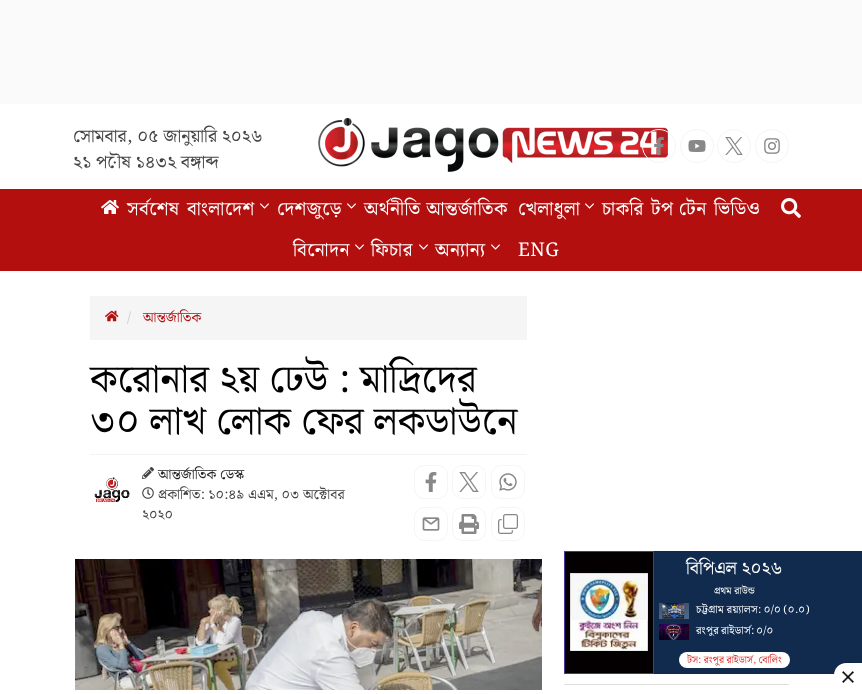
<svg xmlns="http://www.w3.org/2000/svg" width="862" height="694">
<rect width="100%" height="100%" fill="#fff"/>
<rect width="862" height="104" fill="#fafafa"/>
<text x="73" y="142" style="font-family:Noto Serif Bengali;font-size:18px;fill:#444">সোমবার, ০৫ জানুয়ারি ২০২৬</text>
<text x="73" y="168" style="font-family:Noto Serif Bengali;font-size:18px;fill:#444">২১ পৌষ ১৪৩২ বঙ্গাব্দ</text>
<image x="318" y="118" width="350" height="54" href="media/1.png"/>
<circle cx="659" cy="146" r="16.5" fill="none" stroke="#f5f5f5"/>
<image x="654" y="137" width="10" height="18" href="media/2.png"/>
<circle cx="697" cy="146" r="16.5" fill="none" stroke="#f5f5f5"/>
<image x="688" y="140" width="18" height="12" href="media/3.png"/>
<circle cx="734" cy="146" r="16.5" fill="none" stroke="#f5f5f5"/>
<image x="725" y="137" width="18" height="18" href="media/4.png"/>
<circle cx="772" cy="146" r="16.5" fill="none" stroke="#f5f5f5"/>
<image x="764" y="138" width="16" height="16" href="media/5.png"/>
<rect y="189" width="862" height="82" fill="#b30f0f"/>
<image x="101" y="200" width="18" height="14" href="media/6.png"/>
<text x="127" y="215" style="font-family:Noto Serif Bengali;font-size:19px;letter-spacing:0.5px;fill:#fff">সর্বশেষ</text>
<text x="187" y="215" style="font-family:Noto Serif Bengali;font-size:19px;letter-spacing:0.5px;fill:#fff">বাংলাদেশ</text>
<image x="260" y="203" width="9" height="6" href="media/7.png"/>
<text x="277" y="215" style="font-family:Noto Serif Bengali;font-size:19px;letter-spacing:0.5px;fill:#fff">দেশজুড়ে</text>
<image x="347" y="203" width="9" height="6" href="media/7.png"/>
<text x="364" y="215" style="font-family:Noto Serif Bengali;font-size:19px;letter-spacing:0.5px;fill:#fff">অর্থনীতি আন্তর্জাতিক</text>
<text x="518" y="215" style="font-family:Noto Serif Bengali;font-size:19px;letter-spacing:0.5px;fill:#fff">খেলাধুলা</text>
<image x="585" y="203" width="9" height="6" href="media/7.png"/>
<text x="602" y="215" style="font-family:Noto Serif Bengali;font-size:19px;letter-spacing:0.5px;fill:#fff">চাকরি</text>
<text x="651" y="215" style="font-family:Noto Serif Bengali;font-size:19px;letter-spacing:0.5px;fill:#fff">টপ টেন</text>
<text x="714" y="215" style="font-family:Noto Serif Bengali;font-size:19px;letter-spacing:0.5px;fill:#fff">ভিডিও</text>
<text x="293" y="256" style="font-family:Noto Serif Bengali;font-size:19px;letter-spacing:0.5px;fill:#fff">বিনোদন</text>
<image x="355" y="244" width="9" height="6" href="media/7.png"/>
<text x="371" y="256" style="font-family:Noto Serif Bengali;font-size:19px;letter-spacing:0.5px;fill:#fff">ফিচার</text>
<image x="419" y="244" width="9" height="6" href="media/7.png"/>
<text x="435" y="256" style="font-family:Noto Serif Bengali;font-size:19px;letter-spacing:0.5px;fill:#fff">অন্যান্য</text>
<image x="491" y="244" width="9" height="6" href="media/7.png"/>
<text x="518" y="256" style="font-family:Noto Serif Bengali;font-size:19px;letter-spacing:0.5px;fill:#fff">ENG</text>
<image x="781" y="198" width="20" height="20" href="media/8.png"/>
<rect x="90" y="296" width="437" height="44" fill="#f5f5f5"/>
<image x="105" y="310" width="14" height="12" href="media/9.png"/>
<text x="127" y="322" style="font-family:Noto Serif Bengali;font-size:14px;fill:#ccc">/</text>
<text x="143" y="322" style="font-family:Noto Serif Bengali;font-size:14px;fill:#b30f0f">আন্তর্জাতিক</text>
<text x="90" y="392" style="font-family:Noto Serif Bengali;font-size:39px;fill:#000">করোনার ২য় ঢেউ : মাদ্রিদের</text>
<text x="90" y="434" style="font-family:Noto Serif Bengali;font-size:39px;fill:#000">৩০ লাখ লোক ফের লকডাউনে</text>
<rect x="90" y="454" width="437" height="1" fill="#f3f3f3"/>
<image x="94" y="477" width="36" height="26" href="media/10.png"/>
<image x="142" y="467" width="12" height="12" href="media/11.png"/>
<text x="158" y="479" style="font-family:Noto Serif Bengali;font-size:14px;fill:#222">আন্তর্জাতিক ডেস্ক</text>
<image x="142" y="487" width="12" height="12" href="media/12.png"/>
<text x="158" y="499" style="font-family:Noto Serif Bengali;font-size:14px;fill:#444">প্রকাশিত: ১০:৪৯ এএম, ০৩ অক্টোবর</text>
<text x="142" y="519" style="font-family:Noto Serif Bengali;font-size:14px;fill:#444">২০২০</text>
<rect x="414.5" y="465.5" width="33" height="33" rx="9.5" fill="none" stroke="#f5f5f5"/>
<image x="425" y="472" width="12" height="20" href="media/13.png"/>
<rect x="452.5" y="465.5" width="33" height="33" rx="9.5" fill="none" stroke="#f5f5f5"/>
<image x="459" y="472" width="20" height="20" href="media/14.png"/>
<rect x="491.5" y="465.5" width="33" height="33" rx="9.5" fill="none" stroke="#f5f5f5"/>
<image x="499" y="473" width="18" height="18" href="media/15.png"/>
<rect x="414.5" y="507.5" width="33" height="33" rx="9.5" fill="none" stroke="#f5f5f5"/>
<image x="422" y="517" width="18" height="14" href="media/16.png"/>
<rect x="452.5" y="507.5" width="33" height="33" rx="9.5" fill="none" stroke="#f5f5f5"/>
<image x="459" y="514" width="20" height="20" href="media/17.png"/>
<rect x="491.5" y="507.5" width="33" height="33" rx="9.5" fill="none" stroke="#f5f5f5"/>
<image x="498" y="514" width="20" height="20" href="media/18.png"/>
<image x="75" y="559" width="467" height="131" href="media/19.png"/>
<rect x="564.5" y="551.5" width="89" height="122" fill="#040001" stroke="#4e339d"/>
<image x="570" y="573" width="78" height="78" href="media/20.png"/>
<rect x="654" y="551" width="208" height="123" fill="#112b4e"/>
<text x="686" y="574" style="font-family:Noto Serif Bengali;font-size:18px;fill:#fff">বিপিএল ২০২৬</text>
<text x="714" y="594" style="font-family:Noto Serif Bengali;font-size:10px;fill:#fff">প্রথম রাউন্ড</text>
<image x="659" y="603" width="30" height="16" href="media/21.png"/>
<text x="696" y="613" word-spacing="-0.5" style="font-family:Noto Serif Bengali;font-size:11px;letter-spacing:0.2px;fill:#fff">চট্টগ্রাম রয়্যালস: ০/০ (০.০)</text>
<image x="659" y="624" width="30" height="16" href="media/22.png"/>
<text x="696" y="634" word-spacing="-1" style="font-family:Noto Serif Bengali;font-size:11px;letter-spacing:0.2px;fill:#fff">রংপুর রাইডার্স: ০/০</text>
<rect x="679" y="652" width="111" height="16" rx="8" fill="#fff"/>
<text x="687" y="663" style="font-family:Noto Serif Bengali;font-size:10px;fill:#d8302f">টস: রংপুর রাইডার্স, বোলিং</text>
<rect x="564" y="684" width="225" height="1" fill="#ddd"/>
<rect x="834" y="662" width="28" height="28" rx="12" fill="#00000033" filter="blur(0.5px)"/>
<path d="M846 663h16v28h-28v-16c0-6.5 5.5-12 12-12z" fill="#fff"/>
<image x="842" y="671" width="12" height="12" href="media/23.png"/>
</svg>
